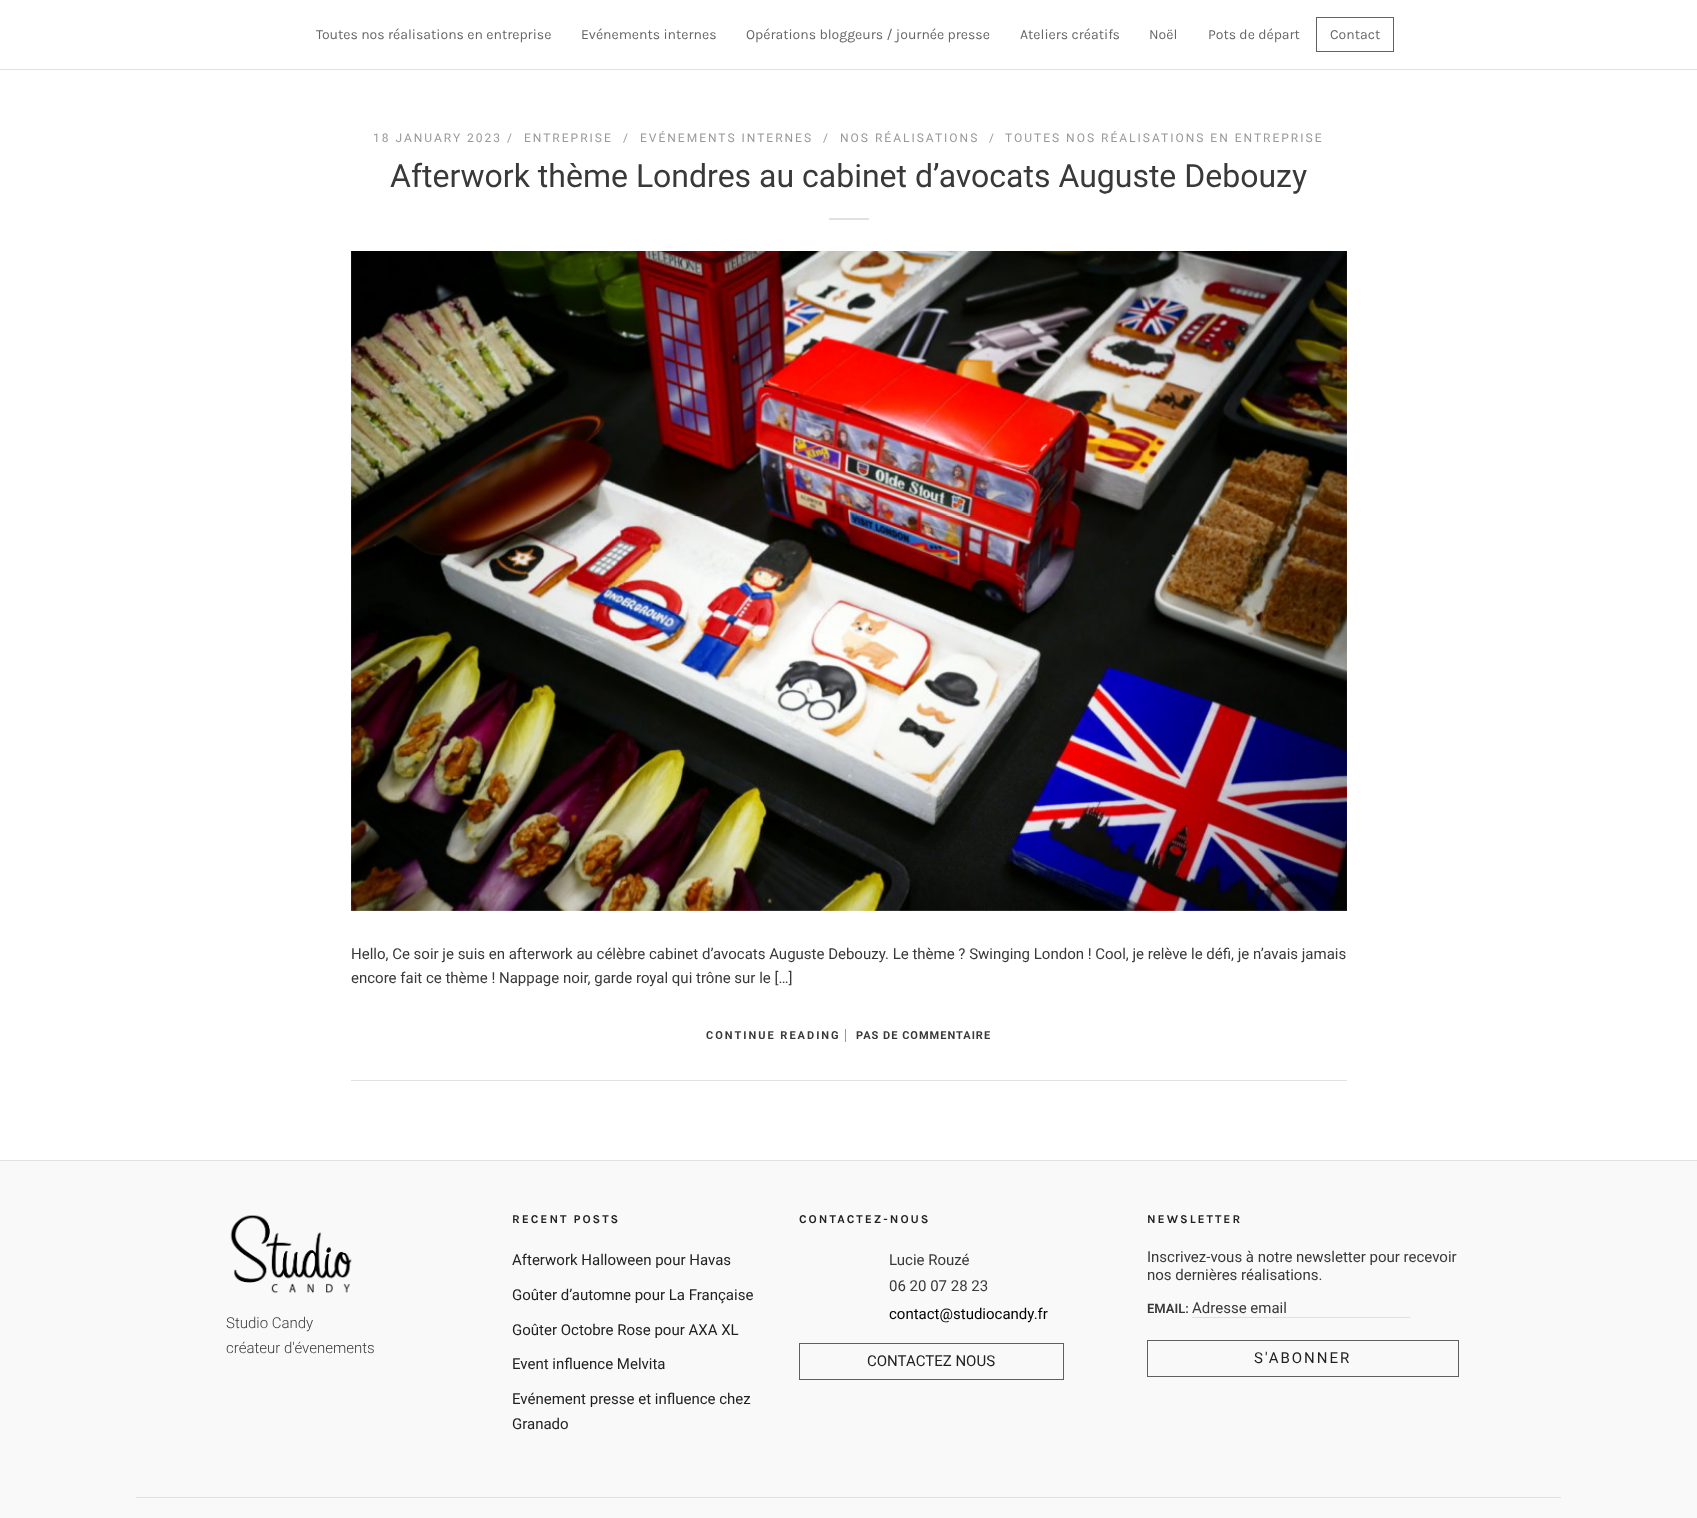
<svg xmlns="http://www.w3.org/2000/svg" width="1697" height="1518">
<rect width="100%" height="100%" fill="#fff"/>
<rect y="69" width="1697" height="1" fill="#e1e1e1"/>
<text x="316" y="39" style="font-family:Karla;font-size:14px;fill:#666">Toutes nos réalisations en entreprise</text>
<text x="581" y="39" style="font-family:Karla;font-size:14px;fill:#666">Evénements internes</text>
<text x="746" y="39" style="font-family:Karla;font-size:14px;fill:#666">Opérations bloggeurs / journée presse</text>
<text x="1020" y="39" style="font-family:Karla;font-size:14px;fill:#666">Ateliers créatifs</text>
<text x="1149" y="39" style="font-family:Karla;font-size:14px;fill:#666">Noël</text>
<text x="1208" y="39" style="font-family:Karla;font-size:14px;fill:#666">Pots de départ</text>
<rect x="1316.5" y="17.5" width="77" height="34" fill="none" stroke="#616161"/>
<text x="1330" y="39" style="font-family:Karla;font-size:14px;fill:#666">Contact</text>
<rect x="351" y="1080" width="996" height="1" fill="#e1e1e1"/>
<text x="373" y="142" style="font-family:Roboto;font-size:12px;letter-spacing:2px;fill:#999">18 JANUARY 2023 /</text>
<text x="524" y="142" style="font-family:Roboto;font-size:12px;letter-spacing:2px;fill:#999">ENTREPRISE</text>
<text x="623" y="142" style="font-family:Roboto;font-size:12px;letter-spacing:2px;fill:#999">/</text>
<text x="640" y="142" style="font-family:Roboto;font-size:12px;letter-spacing:2px;fill:#999">EVÉNEMENTS INTERNES</text>
<text x="823" y="142" style="font-family:Roboto;font-size:12px;letter-spacing:2px;fill:#999">/</text>
<text x="840" y="142" style="font-family:Roboto;font-size:12px;letter-spacing:2px;fill:#999">NOS RÉALISATIONS</text>
<text x="989" y="142" style="font-family:Roboto;font-size:12px;letter-spacing:2px;fill:#999">/</text>
<text x="1005" y="142" style="font-family:Roboto;font-size:12px;letter-spacing:2px;fill:#999">TOUTES NOS RÉALISATIONS EN ENTREPRISE</text>
<text x="390" y="187" style="font-family:Roboto;font-size:32px;fill:#393939">Afterwork thème Londres au cabinet d’avocats Auguste Debouzy</text>
<rect x="829" y="218" width="40" height="2" fill="#e1e1e1"/>
<image x="351" y="251" width="996" height="660" href="media/1.png"/>
<text x="351" y="959" style="font-family:Roboto;font-size:15px;fill:#393939">Hello, Ce soir je suis en afterwork au célèbre cabinet d’avocats Auguste Debouzy. Le thème ? Swinging London ! Cool, je relève le défi, je n’avais jamais</text>
<text x="351" y="983" style="font-family:Roboto;font-size:15px;fill:#393939">encore fait ce thème ! Nappage noir, garde royal qui trône sur le […]</text>
<text x="706" y="1039" style="font-family:Roboto;font-size:11px;font-weight:bold;letter-spacing:2px;fill:#393939">CONTINUE READING</text>
<text x="856" y="1039" style="font-family:Roboto;font-size:11px;font-weight:bold;letter-spacing:1px;fill:#393939">PAS DE COMMENTAIRE</text>
<rect x="845" y="1029" width="1" height="13" fill="#999"/>
<rect y="1161" width="1697" height="357" fill="#f9f9f9"/>
<rect y="1160" width="1697" height="1" fill="#e1e1e1"/>
<image x="230" y="1215" width="122" height="79" href="media/2.png"/>
<text x="226" y="1328" style="font-family:Roboto;font-size:15px;font-weight:300;fill:#393939">Studio Candy</text>
<text x="226" y="1353" style="font-family:Roboto;font-size:15px;font-weight:300;fill:#393939">créateur d'évenements</text>
<text x="512" y="1223" style="font-family:Karla;font-size:12px;font-weight:bold;letter-spacing:2px;fill:#222">RECENT POSTS</text>
<text x="512" y="1265" style="font-family:Roboto;font-size:15px;fill:#222">Afterwork Halloween pour Havas</text>
<text x="512" y="1300" style="font-family:Roboto;font-size:15px;fill:#222">Goûter d’automne pour La Française</text>
<text x="512" y="1335" style="font-family:Roboto;font-size:15px;fill:#222">Goûter Octobre Rose pour AXA XL</text>
<text x="512" y="1369" style="font-family:Roboto;font-size:15px;fill:#222">Event influence Melvita</text>
<text x="512" y="1404" style="font-family:Roboto;font-size:15px;fill:#222">Evénement presse et influence chez</text>
<text x="512" y="1429" style="font-family:Roboto;font-size:15px;fill:#222">Granado</text>
<text x="799" y="1223" style="font-family:Karla;font-size:12px;font-weight:bold;letter-spacing:2px;fill:#222">CONTACTEZ-NOUS</text>
<text x="889" y="1265" style="font-family:Roboto;font-size:15px;fill:#393939">Lucie Rouzé</text>
<text x="889" y="1291" style="font-family:Roboto;font-size:15px;fill:#393939">06 20 07 28 23</text>
<text x="889" y="1319" style="font-family:Roboto;font-size:15px;fill:#000">contact@studiocandy.fr</text>
<rect x="799.5" y="1343.5" width="264" height="36" fill="none" stroke="#5f5f5f"/>
<text x="867" y="1366" style="font-family:Roboto;font-size:15px;fill:#222">CONTACTEZ NOUS</text>
<text x="1147" y="1223" style="font-family:Karla;font-size:12px;font-weight:bold;letter-spacing:2px;fill:#222">NEWSLETTER</text>
<text x="1147" y="1262" style="font-family:Roboto;font-size:15px;fill:#393939">Inscrivez-vous à notre newsletter pour recevoir</text>
<text x="1147" y="1280" style="font-family:Roboto;font-size:15px;fill:#393939">nos dernières réalisations.</text>
<text x="1147" y="1313" style="font-family:Roboto;font-size:13px;font-weight:600;fill:#393939">EMAIL:</text>
<rect x="1192" y="1317" width="218" height="1" fill="#e1e1e1"/>
<text x="1192" y="1313" style="font-family:Roboto;font-size:15px;fill:#393939">Adresse email</text>
<rect x="1147.5" y="1340.5" width="311" height="36" fill="none" stroke="#5f5f5f"/>
<text x="1254" y="1363" style="font-family:Roboto;font-size:15px;letter-spacing:2px;fill:#222">S'ABONNER</text>
<rect x="136" y="1497" width="1425" height="1" fill="#e1e1e1"/>
</svg>
